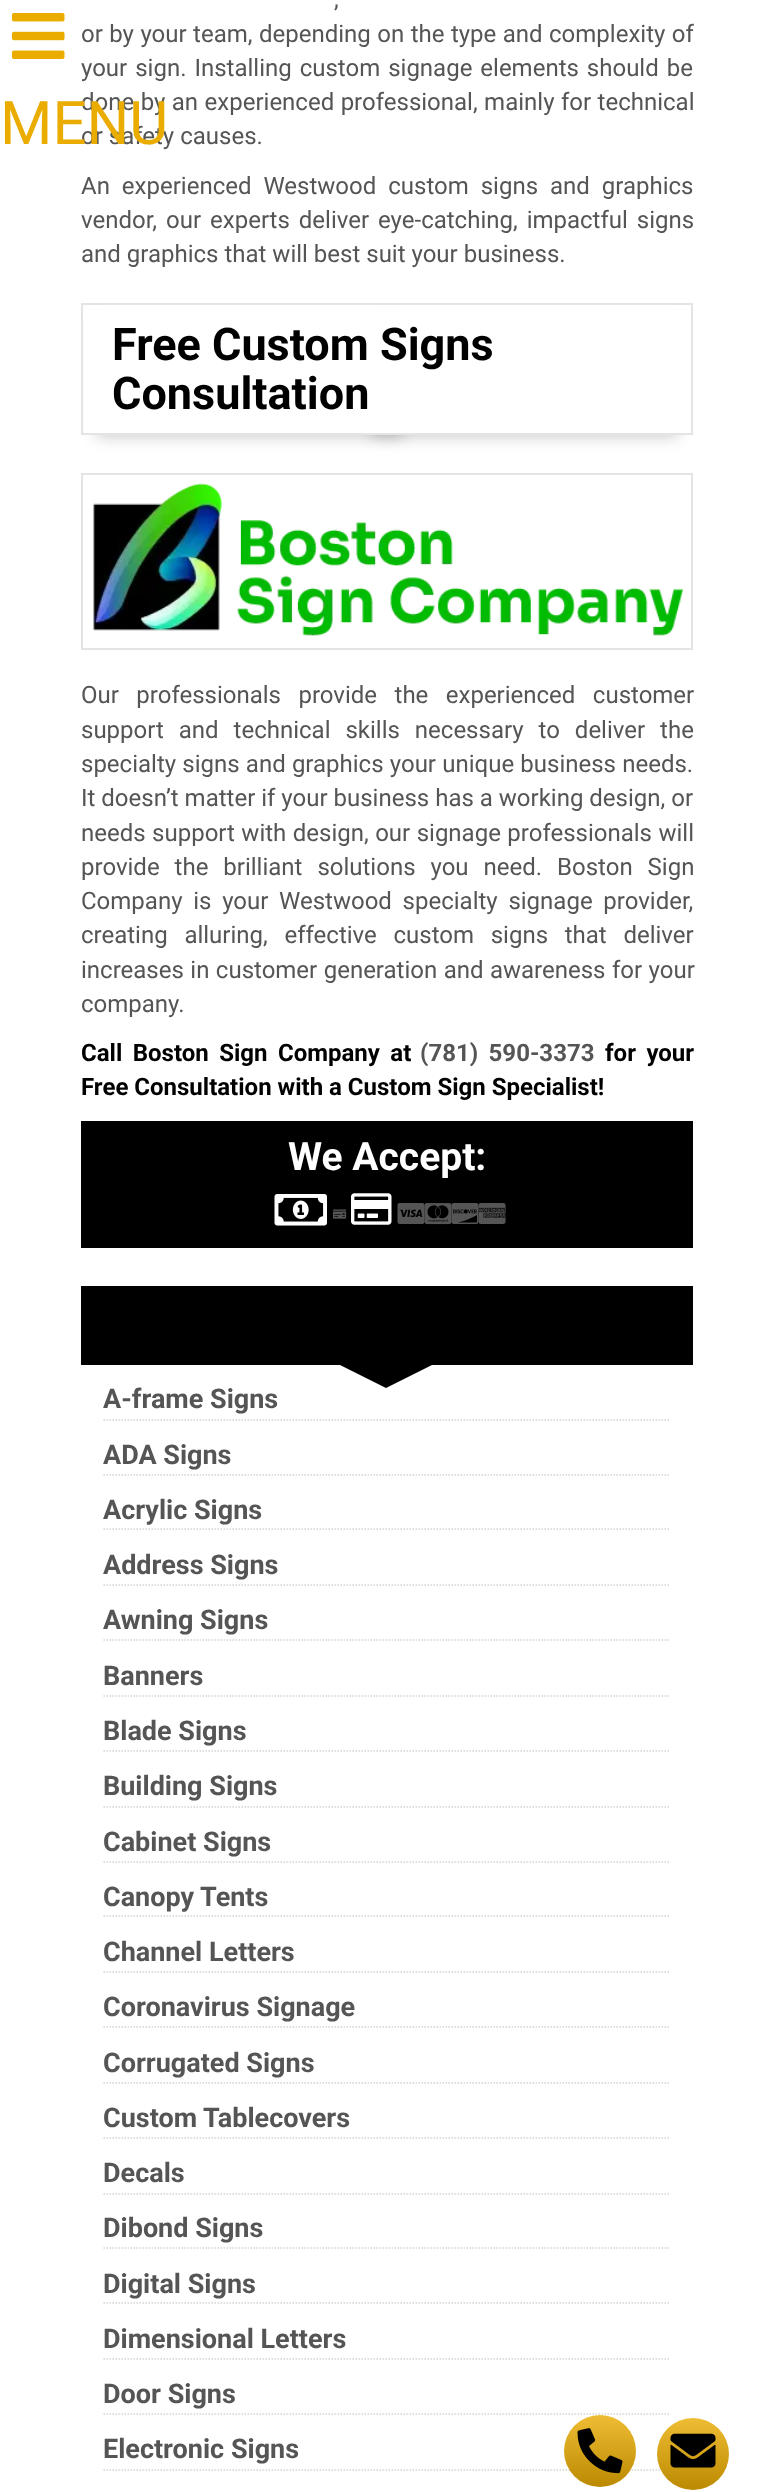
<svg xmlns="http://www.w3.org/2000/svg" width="774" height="2490">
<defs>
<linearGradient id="g1" gradientUnits="userSpaceOnUse" x1="600" y1="2415" x2="600" y2="2487"><stop offset="0" stop-color="#efbd33"/><stop offset="1" stop-color="#bc8a00"/></linearGradient>
<linearGradient id="g2" gradientUnits="userSpaceOnUse" x1="693" y1="2418" x2="693" y2="2490"><stop offset="0" stop-color="#efbd33"/><stop offset="1" stop-color="#bc8a00"/></linearGradient>
</defs>
<rect width="100%" height="100%" fill="#fff"/>
<text x="334" y="7" word-spacing="3" style="font-family:Roboto;font-size:24px;fill:#555">,</text>
<text x="81" y="42" word-spacing="0.5" style="font-family:Roboto;font-size:24px;fill:#555">or by your team, depending on the type and complexity of</text>
<text x="81" y="76" word-spacing="2" style="font-family:Roboto;font-size:24px;fill:#555">your sign. Installing custom signage elements should be</text>
<text x="81" y="110" word-spacing="0.5" style="font-family:Roboto;font-size:24px;fill:#555">done by an experienced professional, mainly for technical</text>
<text x="81" y="144" style="font-family:Roboto;font-size:24px;fill:#555">or safety causes.</text>
<text x="81" y="194" word-spacing="6" style="font-family:Roboto;font-size:24px;fill:#555">An experienced Westwood custom signs and graphics</text>
<text x="81" y="228" word-spacing="3" style="font-family:Roboto;font-size:24px;fill:#555">vendor, our experts deliver eye-catching, impactful signs</text>
<text x="81" y="262" style="font-family:Roboto;font-size:24px;fill:#555">and graphics that will best suit your business.</text>
<rect x="96" y="327" width="306" height="110" fill="#00000033" filter="blur(7.5px)"/>
<rect x="372" y="327" width="306" height="110" fill="#00000033" filter="blur(7.5px)"/>
<rect x="84" y="312" width="606" height="121" fill="#fff"/>
<rect x="82" y="304" width="610" height="130" fill="none" stroke="#e4e4e4" stroke-width="2"/>
<text x="112" y="360" style="font-family:Roboto;font-size:45px;font-weight:bold;fill:#000">Free Custom Signs</text>
<text x="112" y="409" style="font-family:Roboto;font-size:45px;font-weight:bold;fill:#000">Consultation</text>
<rect x="82" y="474" width="610" height="175" fill="none" stroke="#e4e4e4" stroke-width="2"/>
<image x="93" y="483" width="590" height="153" href="media/1.png"/>
<text x="81" y="703" word-spacing="11.5" style="font-family:Roboto;font-size:24px;fill:#555">Our professionals provide the experienced customer</text>
<text x="81" y="738" word-spacing="9" style="font-family:Roboto;font-size:24px;fill:#555">support and technical skills necessary to deliver the</text>
<text x="81" y="772" word-spacing="0.25" style="font-family:Roboto;font-size:24px;fill:#555">specialty signs and graphics your unique business needs.</text>
<text x="81" y="806" style="font-family:Roboto;font-size:24px;fill:#555">It doesn’t matter if your business has a working design, or</text>
<text x="81" y="841" word-spacing="0.5" style="font-family:Roboto;font-size:24px;fill:#555">needs support with design, our signage professionals will</text>
<text x="81" y="875" word-spacing="9" style="font-family:Roboto;font-size:24px;fill:#555">provide the brilliant solutions you need. Boston Sign</text>
<text x="81" y="909" word-spacing="4.75" style="font-family:Roboto;font-size:24px;fill:#555">Company is your Westwood specialty signage provider,</text>
<text x="81" y="943" word-spacing="10.75" style="font-family:Roboto;font-size:24px;fill:#555">creating alluring, effective custom signs that deliver</text>
<text x="81" y="978" word-spacing="0.5" style="font-family:Roboto;font-size:24px;fill:#555">increases in customer generation and awareness for your</text>
<text x="81" y="1012" style="font-family:Roboto;font-size:24px;fill:#555">company.</text>
<text x="81" y="1061" word-spacing="4.5" style="font-family:Roboto;font-size:24px;font-weight:bold;fill:#000">Call Boston Sign Company at</text>
<text x="420" y="1061" word-spacing="4.5" style="font-family:Roboto;font-size:24px;font-weight:bold;fill:#555">(781) 590-3373</text>
<text x="605" y="1061" word-spacing="4.5" style="font-family:Roboto;font-size:24px;font-weight:bold;fill:#000">for your</text>
<text x="81" y="1095" style="font-family:Roboto;font-size:24px;font-weight:bold;fill:#000">Free Consultation with a Custom Sign Specialist!</text>
<rect x="81" y="1121" width="612" height="127" fill="#000"/>
<text x="288" y="1170" style="font-family:Roboto;font-size:39px;font-weight:bold;fill:#fff">We Accept:</text>
<image x="274" y="1194" width="53" height="32" href="media/2.png"/>
<image x="333" y="1209" width="14" height="10" href="media/3.png"/>
<image x="351" y="1193" width="41" height="32" href="media/4.png"/>
<image x="397" y="1203" width="28" height="21" href="media/5.png"/>
<image x="424" y="1203" width="28" height="22" href="media/6.png"/>
<image x="451" y="1203" width="28" height="21" href="media/7.png"/>
<image x="478" y="1203" width="28" height="21" href="media/8.png"/>
<rect x="81" y="1286" width="612" height="79" fill="#000"/>
<path d="M326 1358h120l-60 30z" fill="#000"/>
<path d="M103.5 1420h567" fill="none" stroke="#d3d3d3" stroke-width="1.5" stroke-dasharray="1.5 1.5"/>
<text x="103" y="1408" style="font-family:Roboto;font-size:27px;font-weight:bold;fill:#555">A-frame Signs</text>
<path d="M103.5 1475h567" fill="none" stroke="#d3d3d3" stroke-width="1.5" stroke-dasharray="1.5 1.5"/>
<text x="103" y="1464" style="font-family:Roboto;font-size:27px;font-weight:bold;fill:#555">ADA Signs</text>
<path d="M103.5 1529h567" fill="none" stroke="#d3d3d3" stroke-width="1.5" stroke-dasharray="1.5 1.5"/>
<text x="103" y="1519" style="font-family:Roboto;font-size:27px;font-weight:bold;fill:#555">Acrylic Signs</text>
<path d="M103.5 1585h567" fill="none" stroke="#d3d3d3" stroke-width="1.5" stroke-dasharray="1.5 1.5"/>
<text x="103" y="1574" style="font-family:Roboto;font-size:27px;font-weight:bold;fill:#555">Address Signs</text>
<path d="M103.5 1640h567" fill="none" stroke="#d3d3d3" stroke-width="1.5" stroke-dasharray="1.5 1.5"/>
<text x="103" y="1629" style="font-family:Roboto;font-size:27px;font-weight:bold;fill:#555">Awning Signs</text>
<path d="M103.5 1696h567" fill="none" stroke="#d3d3d3" stroke-width="1.5" stroke-dasharray="1.5 1.5"/>
<text x="103" y="1685" style="font-family:Roboto;font-size:27px;font-weight:bold;fill:#555">Banners</text>
<path d="M103.5 1751h567" fill="none" stroke="#d3d3d3" stroke-width="1.5" stroke-dasharray="1.5 1.5"/>
<text x="103" y="1740" style="font-family:Roboto;font-size:27px;font-weight:bold;fill:#555">Blade Signs</text>
<path d="M103.5 1807h567" fill="none" stroke="#d3d3d3" stroke-width="1.5" stroke-dasharray="1.5 1.5"/>
<text x="103" y="1795" style="font-family:Roboto;font-size:27px;font-weight:bold;fill:#555">Building Signs</text>
<path d="M103.5 1862h567" fill="none" stroke="#d3d3d3" stroke-width="1.5" stroke-dasharray="1.5 1.5"/>
<text x="103" y="1851" style="font-family:Roboto;font-size:27px;font-weight:bold;fill:#555">Cabinet Signs</text>
<path d="M103.5 1916h567" fill="none" stroke="#d3d3d3" stroke-width="1.5" stroke-dasharray="1.5 1.5"/>
<text x="103" y="1906" style="font-family:Roboto;font-size:27px;font-weight:bold;fill:#555">Canopy Tents</text>
<path d="M103.5 1972h567" fill="none" stroke="#d3d3d3" stroke-width="1.5" stroke-dasharray="1.5 1.5"/>
<text x="103" y="1961" style="font-family:Roboto;font-size:27px;font-weight:bold;fill:#555">Channel Letters</text>
<path d="M103.5 2027h567" fill="none" stroke="#d3d3d3" stroke-width="1.5" stroke-dasharray="1.5 1.5"/>
<text x="103" y="2016" style="font-family:Roboto;font-size:27px;font-weight:bold;fill:#555">Coronavirus Signage</text>
<path d="M103.5 2083h567" fill="none" stroke="#d3d3d3" stroke-width="1.5" stroke-dasharray="1.5 1.5"/>
<text x="103" y="2072" style="font-family:Roboto;font-size:27px;font-weight:bold;fill:#555">Corrugated Signs</text>
<path d="M103.5 2138h567" fill="none" stroke="#d3d3d3" stroke-width="1.5" stroke-dasharray="1.5 1.5"/>
<text x="103" y="2127" style="font-family:Roboto;font-size:27px;font-weight:bold;fill:#555">Custom Tablecovers</text>
<path d="M103.5 2194h567" fill="none" stroke="#d3d3d3" stroke-width="1.5" stroke-dasharray="1.5 1.5"/>
<text x="103" y="2182" style="font-family:Roboto;font-size:27px;font-weight:bold;fill:#555">Decals</text>
<path d="M103.5 2248h567" fill="none" stroke="#d3d3d3" stroke-width="1.5" stroke-dasharray="1.5 1.5"/>
<text x="103" y="2237" style="font-family:Roboto;font-size:27px;font-weight:bold;fill:#555">Dibond Signs</text>
<path d="M103.5 2303h567" fill="none" stroke="#d3d3d3" stroke-width="1.5" stroke-dasharray="1.5 1.5"/>
<text x="103" y="2293" style="font-family:Roboto;font-size:27px;font-weight:bold;fill:#555">Digital Signs</text>
<path d="M103.5 2359h567" fill="none" stroke="#d3d3d3" stroke-width="1.5" stroke-dasharray="1.5 1.5"/>
<text x="103" y="2348" style="font-family:Roboto;font-size:27px;font-weight:bold;fill:#555">Dimensional Letters</text>
<path d="M103.5 2414h567" fill="none" stroke="#d3d3d3" stroke-width="1.5" stroke-dasharray="1.5 1.5"/>
<text x="103" y="2403" style="font-family:Roboto;font-size:27px;font-weight:bold;fill:#555">Door Signs</text>
<path d="M103.5 2470h567" fill="none" stroke="#d3d3d3" stroke-width="1.5" stroke-dasharray="1.5 1.5"/>
<text x="103" y="2458" style="font-family:Roboto;font-size:27px;font-weight:bold;fill:#555">Electronic Signs</text>
<image x="12" y="13" width="53" height="46" href="media/9.png"/>
<text x="0" y="144" style="font-family:Roboto;font-size:60px;fill:#ebac00">MENU</text>
<circle cx="600" cy="2451" r="36" fill="url(#g1)"/>
<image x="577" y="2428" width="46" height="46" href="media/10.png"/>
<circle cx="693" cy="2454" r="36" fill="url(#g2)"/>
<image x="670" y="2433" width="46" height="35" href="media/11.png"/>
</svg>
